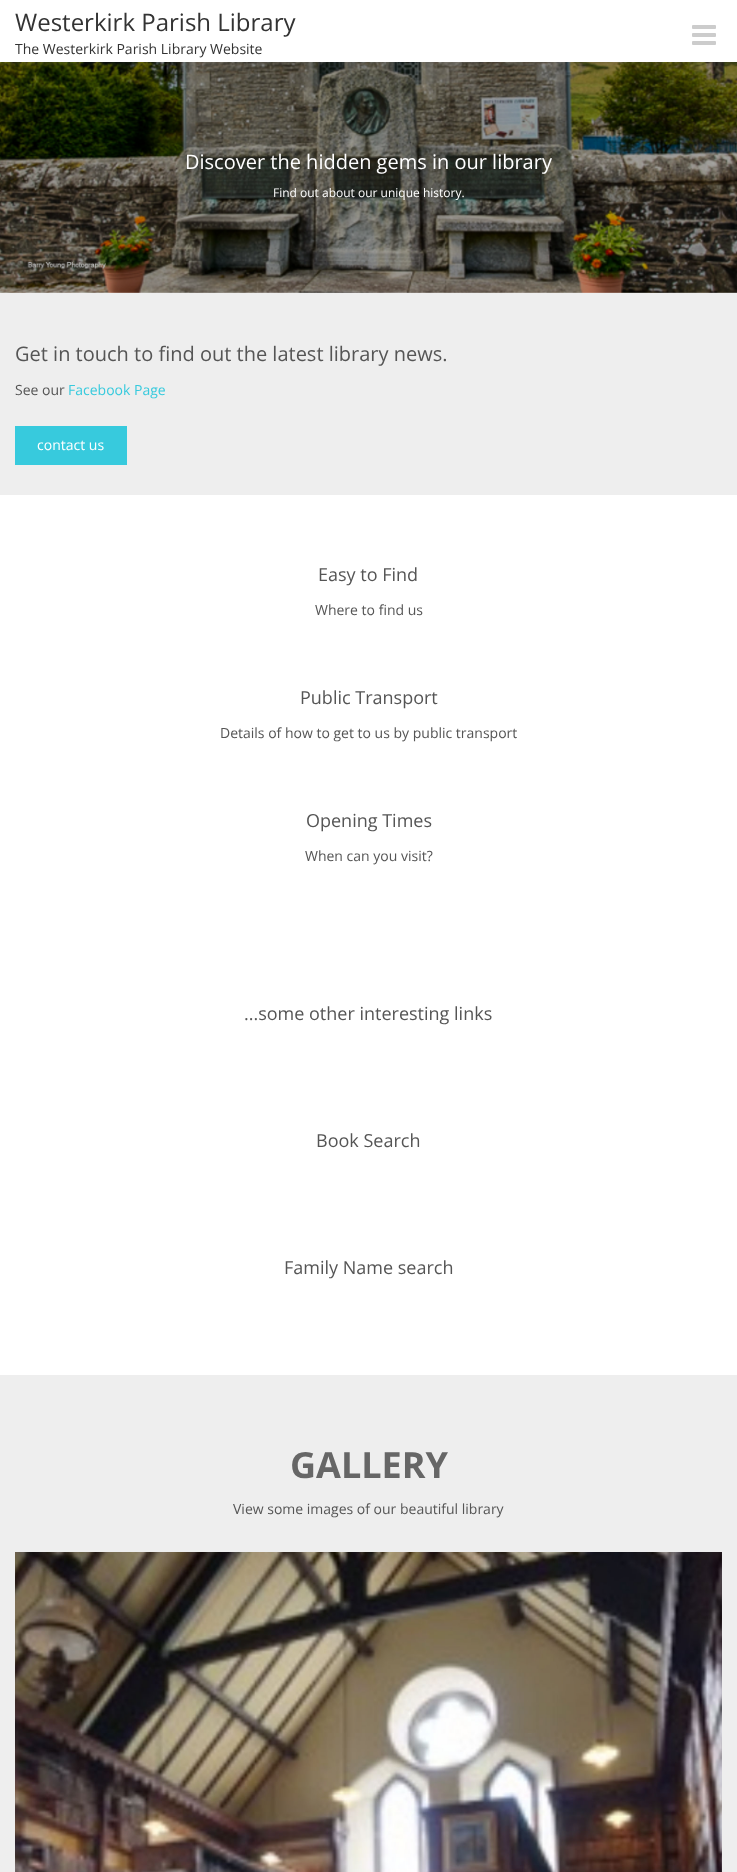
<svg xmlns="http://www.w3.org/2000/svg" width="737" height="1872">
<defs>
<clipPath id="clip1"><rect x="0" y="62" width="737" height="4"/></clipPath>
</defs>
<rect width="100%" height="100%" fill="#fff"/>
<image x="0" y="62" width="737" height="231" href="media/2.png"/>
<g clip-path="url(#clip1)">
<rect x="1" y="1" width="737" height="62" fill="#64646433" filter="blur(2.5px)"/>
</g>
<text x="15" y="31" style="font-family:Open Sans;font-size:24px;fill:#333">Westerkirk Parish Library</text>
<text x="15" y="54" style="font-family:Open Sans;font-size:14px;fill:#333">The Westerkirk Parish Library Website</text>
<image x="692" y="25" width="24" height="20" href="media/1.png"/>
<text x="185" y="169" style="font-family:Open Sans;font-size:20px;fill:#fff">Discover the hidden gems in our library</text>
<text x="273" y="197" style="font-family:Open Sans;font-size:12px;fill:#fff">Find out about our unique history.</text>
<rect y="293" width="737" height="202" fill="#eee"/>
<text x="15" y="361" style="font-family:Open Sans;font-size:20px;fill:#555">Get in touch to find out the latest library news.</text>
<text x="15" y="395" style="font-family:Open Sans;font-size:14px;fill:#555">See our</text>
<text x="68" y="395" style="font-family:Open Sans;font-size:14px;fill:#37cadd">Facebook Page</text>
<rect x="15" y="426" width="112" height="39" fill="#37cadd"/>
<text x="37" y="450" style="font-family:Open Sans;font-size:14px;fill:#fff">contact us</text>
<text x="318" y="581" style="font-family:Open Sans;font-size:18px;fill:#555">Easy to Find</text>
<text x="315" y="615" style="font-family:Open Sans;font-size:14px;fill:#555">Where to find us</text>
<text x="300" y="704" style="font-family:Open Sans;font-size:18px;fill:#555">Public Transport</text>
<text x="220" y="738" style="font-family:Open Sans;font-size:14px;fill:#555">Details of how to get to us by public transport</text>
<text x="306" y="827" style="font-family:Open Sans;font-size:18px;fill:#555">Opening Times</text>
<text x="305" y="861" style="font-family:Open Sans;font-size:14px;fill:#555">When can you visit?</text>
<text x="244" y="1020" style="font-family:Open Sans;font-size:18px;fill:#555">...some other interesting links</text>
<text x="316" y="1147" style="font-family:Open Sans;font-size:18px;fill:#555">Book Search</text>
<text x="284" y="1274" style="font-family:Open Sans;font-size:18px;fill:#555">Family Name search</text>
<rect y="1375" width="737" height="497" fill="#eee"/>
<text x="290" y="1478" style="font-family:Open Sans;font-size:36px;font-weight:bold;fill:#666">GALLERY</text>
<text x="233" y="1514" style="font-family:Open Sans;font-size:14px;fill:#555">View some images of our beautiful library</text>
<image x="15" y="1552" width="707" height="320" href="media/3.png"/>
</svg>
